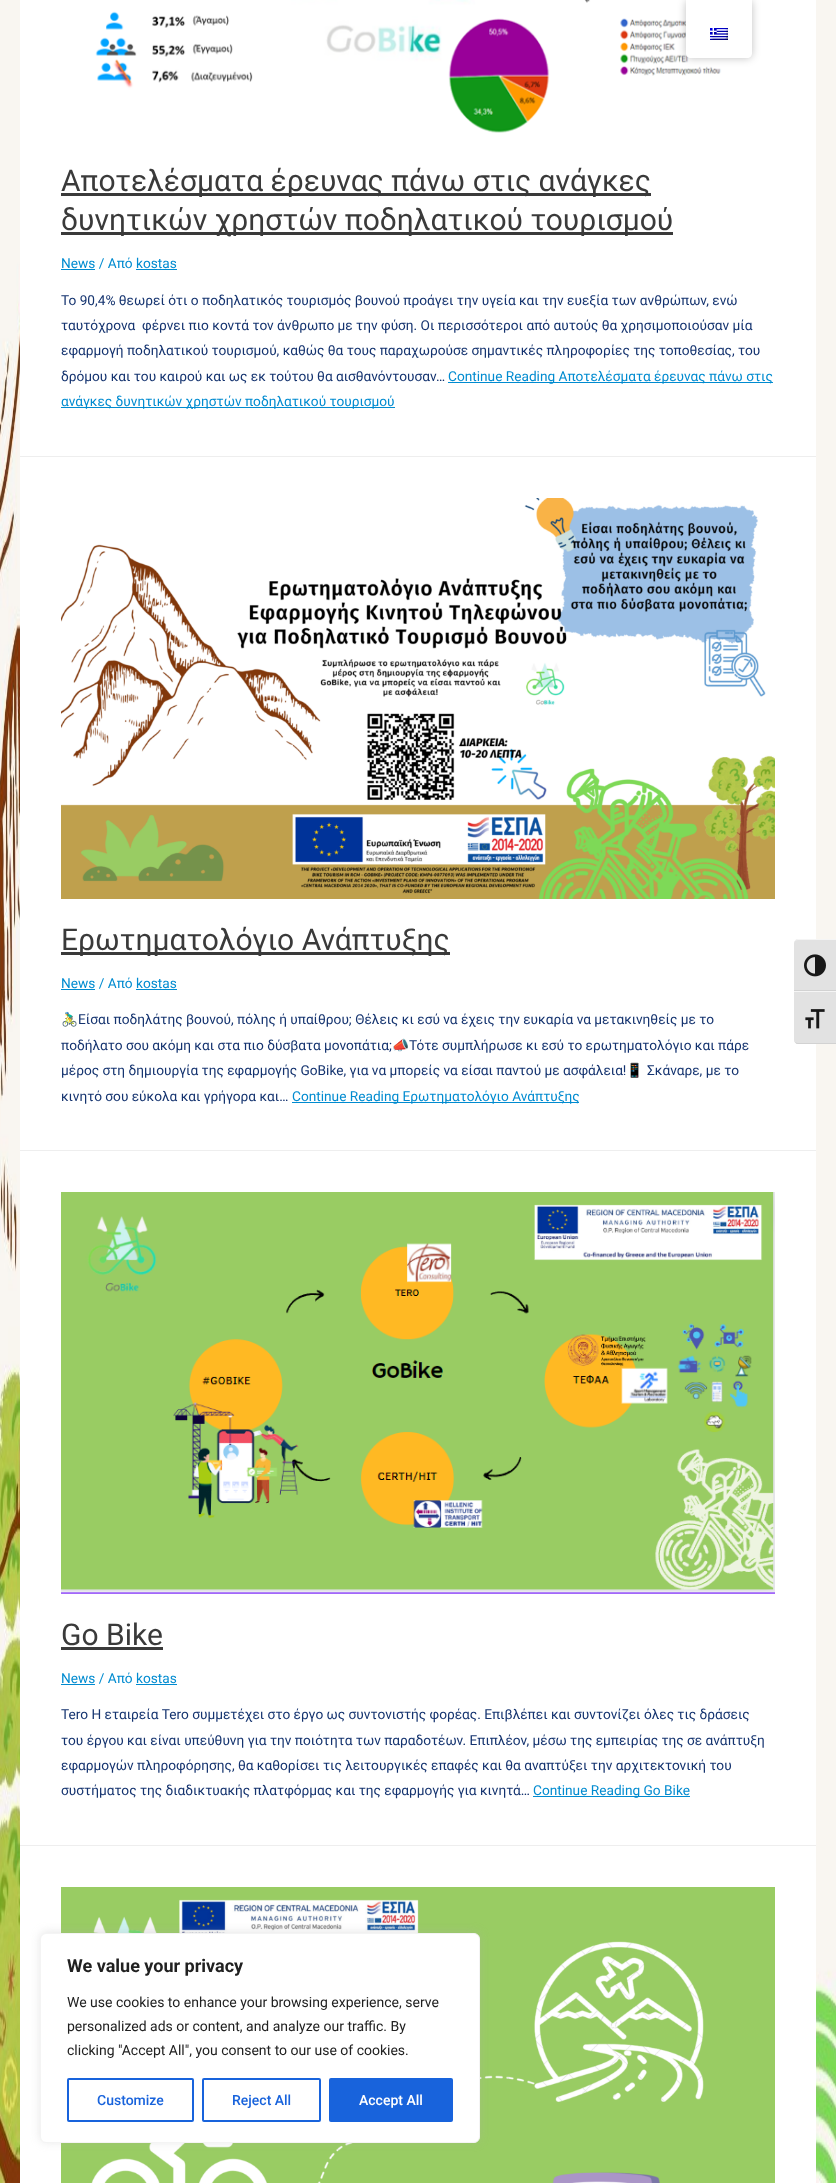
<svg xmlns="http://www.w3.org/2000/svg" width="836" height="2183">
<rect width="100%" height="100%" fill="#fff"/>
<image x="0" y="0" width="836" height="2183" href="media/1.png"/>
<rect x="20" width="796" height="456" fill="#fff"/>
<image x="95" y="0" width="629" height="133" href="media/3.png"/>
<rect x="686" width="66" height="58" rx="5" fill="#00000040" filter="blur(4px)"/>
<path d="M686 0h66v53c0 3-2 5-5 5h-56c-3 0-5-2-5-5z" fill="#fff"/>
<image x="710" y="28" width="18" height="12" href="media/2.png"/>
<rect x="20" y="456" width="796" height="1" fill="#eee"/>
<rect x="61" y="193" width="590" height="3" fill="#3a3a3a"/>
<text x="61" y="191" style="font-family:Roboto;font-size:30px;fill:#3a3a3a">Αποτελέσματα έρευνας πάνω στις ανάγκες</text>
<rect x="61" y="232" width="612" height="3" fill="#3a3a3a"/>
<text x="61" y="230" style="font-family:Roboto;font-size:30px;fill:#3a3a3a">δυνητικών χρηστών ποδηλατικού τουρισμού</text>
<text x="61" y="268" style="font-family:Roboto;font-size:13.68px;fill:#008bd0">News / Από kostas</text>
<rect x="61" y="269" width="34" height="1" fill="#008bd0"/>
<rect x="136" y="269" width="41" height="1" fill="#008bd0"/>
<text x="61" y="305" style="font-family:Roboto;font-size:13.68px;fill:#14336f">Το 90,4% θεωρεί ότι ο ποδηλατικός τουρισμός βουνού προάγει την υγεία και την ευεξία των ανθρώπων, ενώ</text>
<text x="61" y="330" style="font-family:Roboto;font-size:13.68px;fill:#14336f" xml:space="preserve">ταυτόχρονα  φέρνει πιο κοντά τον άνθρωπο με την φύση. Οι περισσότεροι από αυτούς θα χρησιμοποιούσαν μία</text>
<text x="61" y="355" style="font-family:Roboto;font-size:13.68px;fill:#14336f">εφαρμογή ποδηλατικού τουρισμού, καθώς θα τους παραχωρούσε σημαντικές πληροφορίες της τοποθεσίας, του</text>
<text x="61" y="381" style="font-family:Roboto;font-size:13.68px;fill:#14336f">δρόμου και του καιρού και ως εκ τούτου θα αισθανόντουσαν…</text>
<rect x="448" y="382" width="325" height="1" fill="#008bd0"/>
<text x="448" y="381" style="font-family:Roboto;font-size:13.68px;fill:#008bd0">Continue Reading Αποτελέσματα έρευνας πάνω στις</text>
<rect x="61" y="407" width="334" height="1" fill="#008bd0"/>
<text x="61" y="406" style="font-family:Roboto;font-size:13.68px;fill:#008bd0">ανάγκες δυνητικών χρηστών ποδηλατικού τουρισμού</text>
<rect x="20" y="457" width="796" height="693" fill="#fff"/>
<rect x="20" y="1150" width="796" height="1" fill="#eee"/>
<image x="61" y="498" width="714" height="401" href="media/4.png"/>
<rect x="61" y="952" width="389" height="3" fill="#3a3a3a"/>
<text x="61" y="950" style="font-family:Roboto;font-size:30px;fill:#3a3a3a">Ερωτηματολόγιο Ανάπτυξης</text>
<text x="61" y="988" style="font-family:Roboto;font-size:13.68px;fill:#008bd0">News / Από kostas</text>
<rect x="61" y="989" width="34" height="1" fill="#008bd0"/>
<rect x="136" y="989" width="41" height="1" fill="#008bd0"/>
<text x="61" y="1024" style="font-family:Noto Color Emoji;font-size:13.68px;fill:#14336f">🚴‍♂️</text>
<text x="78" y="1024" style="font-family:Roboto;font-size:13.68px;fill:#14336f">Είσαι ποδηλάτης βουνού, πόλης ή υπαίθρου; Θέλεις κι εσύ να έχεις την ευκαρία να μετακινηθείς με το</text>
<text x="61" y="1050" style="font-family:Roboto;font-size:13.68px;fill:#14336f">ποδήλατο σου ακόμη και στα πιο δύσβατα μονοπάτια;</text>
<text x="392" y="1050" style="font-family:Noto Color Emoji;font-size:13.68px;fill:#14336f">📣</text>
<text x="409" y="1050" style="font-family:Roboto;font-size:13.68px;fill:#14336f">Τότε συμπλήρωσε κι εσύ το ερωτηματολόγιο και πάρε</text>
<text x="61" y="1075" style="font-family:Roboto;font-size:13.68px;fill:#14336f">μέρος στη δημιουργία της εφαρμογής GoBike, για να μπορείς να είσαι παντού με ασφάλεια!</text>
<text x="626" y="1075" style="font-family:Noto Color Emoji;font-size:13.68px;fill:#14336f">📱</text>
<text x="647" y="1075" style="font-family:Roboto;font-size:13.68px;fill:#14336f">Σκάναρε, με το</text>
<text x="61" y="1101" style="font-family:Roboto;font-size:13.68px;fill:#14336f">κινητό σου εύκολα και γρήγορα και…</text>
<rect x="292" y="1102" width="287" height="1" fill="#008bd0"/>
<text x="292" y="1101" style="font-family:Roboto;font-size:13.68px;fill:#008bd0">Continue Reading Ερωτηματολόγιο Ανάπτυξης</text>
<rect x="20" y="1151" width="796" height="694" fill="#fff"/>
<rect x="20" y="1845" width="796" height="1" fill="#eee"/>
<image x="61" y="1192" width="714" height="402" href="media/5.png"/>
<text x="61" y="1645" style="font-family:Roboto;font-size:30px;fill:#3a3a3a">Go Bike</text>
<rect x="61" y="1647" width="102" height="3" fill="#3a3a3a"/>
<text x="61" y="1683" style="font-family:Roboto;font-size:13.68px;fill:#008bd0">News / Από kostas</text>
<rect x="61" y="1684" width="34" height="1" fill="#008bd0"/>
<rect x="136" y="1684" width="41" height="1" fill="#008bd0"/>
<text x="61" y="1719" style="font-family:Roboto;font-size:13.68px;fill:#14336f">Tero Η εταιρεία Tero συμμετέχει στο έργο ως συντονιστής φορέας. Επιβλέπει και συντονίζει όλες τις δράσεις</text>
<text x="61" y="1745" style="font-family:Roboto;font-size:13.68px;fill:#14336f">του έργου και είναι υπεύθυνη για την ποιότητα των παραδοτέων. Επιπλέον, μέσω της εμπειρίας της σε ανάπτυξη</text>
<text x="61" y="1770" style="font-family:Roboto;font-size:13.68px;fill:#14336f">εφαρμογών πληροφόρησης, θα καθορίσει τις λειτουργικές επαφές και θα αναπτύξει την αρχιτεκτονική του</text>
<text x="61" y="1795" style="font-family:Roboto;font-size:13.68px;fill:#14336f">συστήματος της διαδικτυακής πλατφόρμας και της εφαρμογής για κινητά…</text>
<rect x="533" y="1796" width="157" height="1" fill="#008bd0"/>
<text x="533" y="1795" style="font-family:Roboto;font-size:13.68px;fill:#008bd0">Continue Reading Go Bike</text>
<rect x="20" y="1846" width="796" height="337" fill="#fff"/>
<image x="61" y="1887" width="714" height="296" href="media/6.png"/>
<path d="M798 939h38v52h-42v-48c0-2 2-4 4-4z" fill="#e2e2e2"/>
<path d="M798 940h38v-1h-38c-2 0-4 2-4 4c0-2 2-3 4-3z" fill="#f5f5f5"/>
<rect x="794" y="990" width="42" height="1" fill="#d2d2d2"/>
<image x="804" y="954" width="22" height="23" href="media/7.png"/>
<path d="M794 991h42v53h-38c-2 0-4-2-4-4z" fill="#e2e2e2"/>
<rect x="794" y="991" width="42" height="1" fill="#f5f5f5"/>
<path d="M836 1044v-1h-38c-2 0-4-1-4-3c0 2 2 4 4 4z" fill="#d2d2d2"/>
<image x="805" y="1009" width="20" height="20" href="media/8.png"/>
<rect x="40" y="1932" width="440" height="210" rx="6" fill="#acabab4d" filter="blur(5px)"/>
<rect x="40.5" y="1933.5" width="439" height="209" rx="5.5" fill="#fff" stroke="#f4f4f4"/>
<text x="67" y="1972" style="font-family:Roboto;font-size:18px;font-weight:bold;fill:#212121">We value your privacy</text>
<text x="67" y="2007" style="font-family:Roboto;font-size:14px;fill:#212121">We use cookies to enhance your browsing experience, serve</text>
<text x="67" y="2031" style="font-family:Roboto;font-size:14px;fill:#212121">personalized ads or content, and analyze our traffic. By</text>
<text x="67" y="2055" style="font-family:Roboto;font-size:14px;fill:#212121">clicking "Accept All", you consent to our use of cookies.</text>
<rect x="68" y="2079" width="125" height="42" rx="1" fill="none" stroke="#1863dc" stroke-width="2"/>
<text x="97" y="2105" style="font-family:Roboto;font-size:14px;font-weight:500;fill:#1863dc">Customize</text>
<rect x="203" y="2079" width="117" height="42" rx="1" fill="none" stroke="#1863dc" stroke-width="2"/>
<text x="232" y="2105" style="font-family:Roboto;font-size:14px;font-weight:500;fill:#1863dc">Reject All</text>
<rect x="330" y="2079" width="122" height="42" rx="1" fill="#1863dc" stroke="#1863dc" stroke-width="2"/>
<text x="359" y="2105" style="font-family:Roboto;font-size:14px;font-weight:500;fill:#fff">Accept All</text>
</svg>
